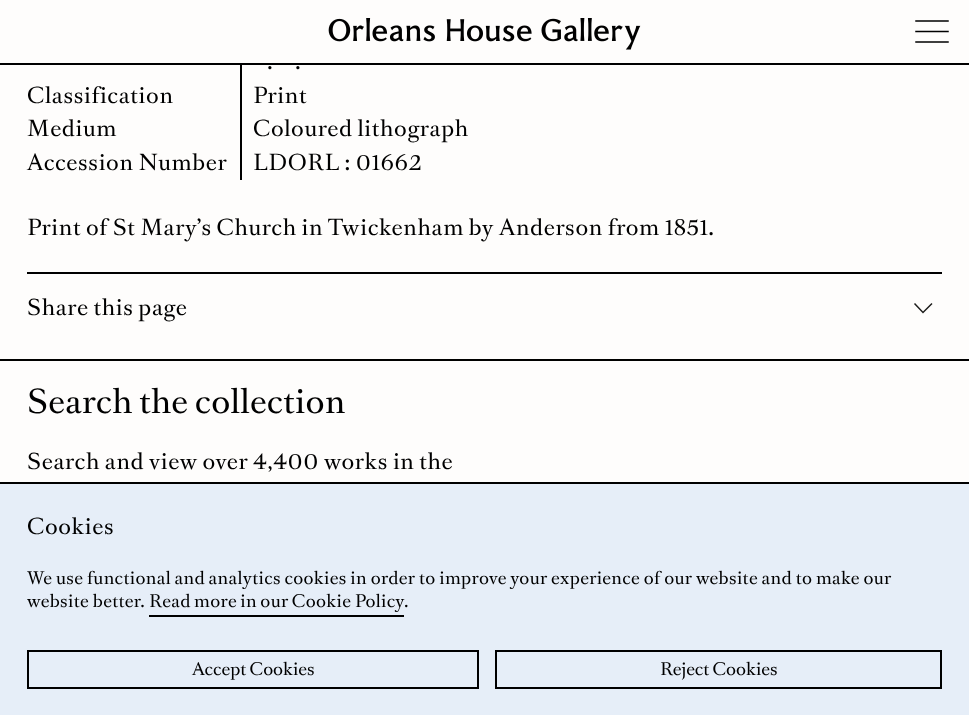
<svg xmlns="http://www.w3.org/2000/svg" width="969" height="715">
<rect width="100%" height="100%" fill="#fefdfc"/>
<rect y="63" width="969" height="2" fill="#000"/>
<image x="328" y="18" width="313" height="32" href="media/1.png"/>
<path d="M916 21h32m-32 10.5h32m-32 10.5h32" fill="none" stroke="#000" stroke-width="1.5" stroke-linecap="square"/>
<rect x="240" y="65" width="2" height="115" fill="#000"/>
<text x="267" y="69" style="font-family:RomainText;font-size:21px;letter-spacing:0.63px;fill:#000">.</text>
<text x="295" y="69" style="font-family:RomainText;font-size:21px;letter-spacing:0.63px;fill:#000">.</text>
<text x="27" y="103" style="font-family:RomainText;font-size:21px;letter-spacing:0.63px;fill:#000">Classification</text>
<text x="253" y="103" style="font-family:RomainText;font-size:21px;letter-spacing:0.63px;fill:#000">Print</text>
<text x="27" y="136" style="font-family:RomainText;font-size:21px;letter-spacing:0.63px;fill:#000">Medium</text>
<text x="253" y="136" style="font-family:RomainText;font-size:21px;letter-spacing:0.63px;fill:#000">Coloured lithograph</text>
<text x="27" y="170" style="font-family:RomainText;font-size:21px;letter-spacing:0.63px;fill:#000">Accession Number</text>
<text x="253" y="170" style="font-family:RomainText;font-size:21px;letter-spacing:0.63px;fill:#000">LDORL : 01662</text>
<text x="27" y="235" style="font-family:RomainText;font-size:21px;letter-spacing:0.63px;fill:#000">Print of St Mary’s Church in Twickenham by Anderson from 1851.</text>
<rect x="27" y="272" width="915" height="2" fill="#000"/>
<text x="27" y="315" style="font-family:RomainText;font-size:21px;letter-spacing:0.63px;fill:#000">Share this page</text>
<path d="M914.5 303.5l8.5 9l9-9" fill="none" stroke="#1d1d1b" stroke-width="1.5"/>
<rect y="359" width="969" height="2" fill="#000"/>
<text x="27" y="413" style="font-family:RomainText;font-size:31.5px;letter-spacing:0.3px;fill:#000">Search the collection</text>
<text x="27" y="469" style="font-family:RomainText;font-size:21px;letter-spacing:0.63px;fill:#000">Search and view over 4,400 works in the</text>
<rect y="484" width="969" height="231" fill="#e6eef8"/>
<rect y="482" width="969" height="2" fill="#000"/>
<text x="27" y="534" style="font-family:RomainText;font-size:21px;letter-spacing:0.63px;fill:#000">Cookies</text>
<text x="27" y="584" style="font-family:RomainText;font-size:16.5px;letter-spacing:0.33px;fill:#000">We use functional and analytics cookies in order to improve your experience of our website and to make our</text>
<text x="27" y="607" style="font-family:RomainText;font-size:16.5px;letter-spacing:0.33px;fill:#000">website better.</text>
<text x="149" y="607" word-spacing="-0.25" style="font-family:RomainText;font-size:16.5px;letter-spacing:0.33px;fill:#000">Read more in our Cookie Policy</text>
<rect x="149" y="615" width="255" height="2" fill="#000"/>
<text x="404" y="607" style="font-family:RomainText;font-size:16.5px;letter-spacing:0.33px;fill:#000">.</text>
<rect x="28" y="651" width="450" height="37" fill="none" stroke="#000" stroke-width="2"/>
<text x="192" y="675" style="font-family:RomainText;font-size:16.5px;fill:#000">Accept Cookies</text>
<rect x="496" y="651" width="445" height="37" fill="none" stroke="#000" stroke-width="2"/>
<text x="660" y="675" style="font-family:RomainText;font-size:16.5px;fill:#000">Reject Cookies</text>
</svg>
